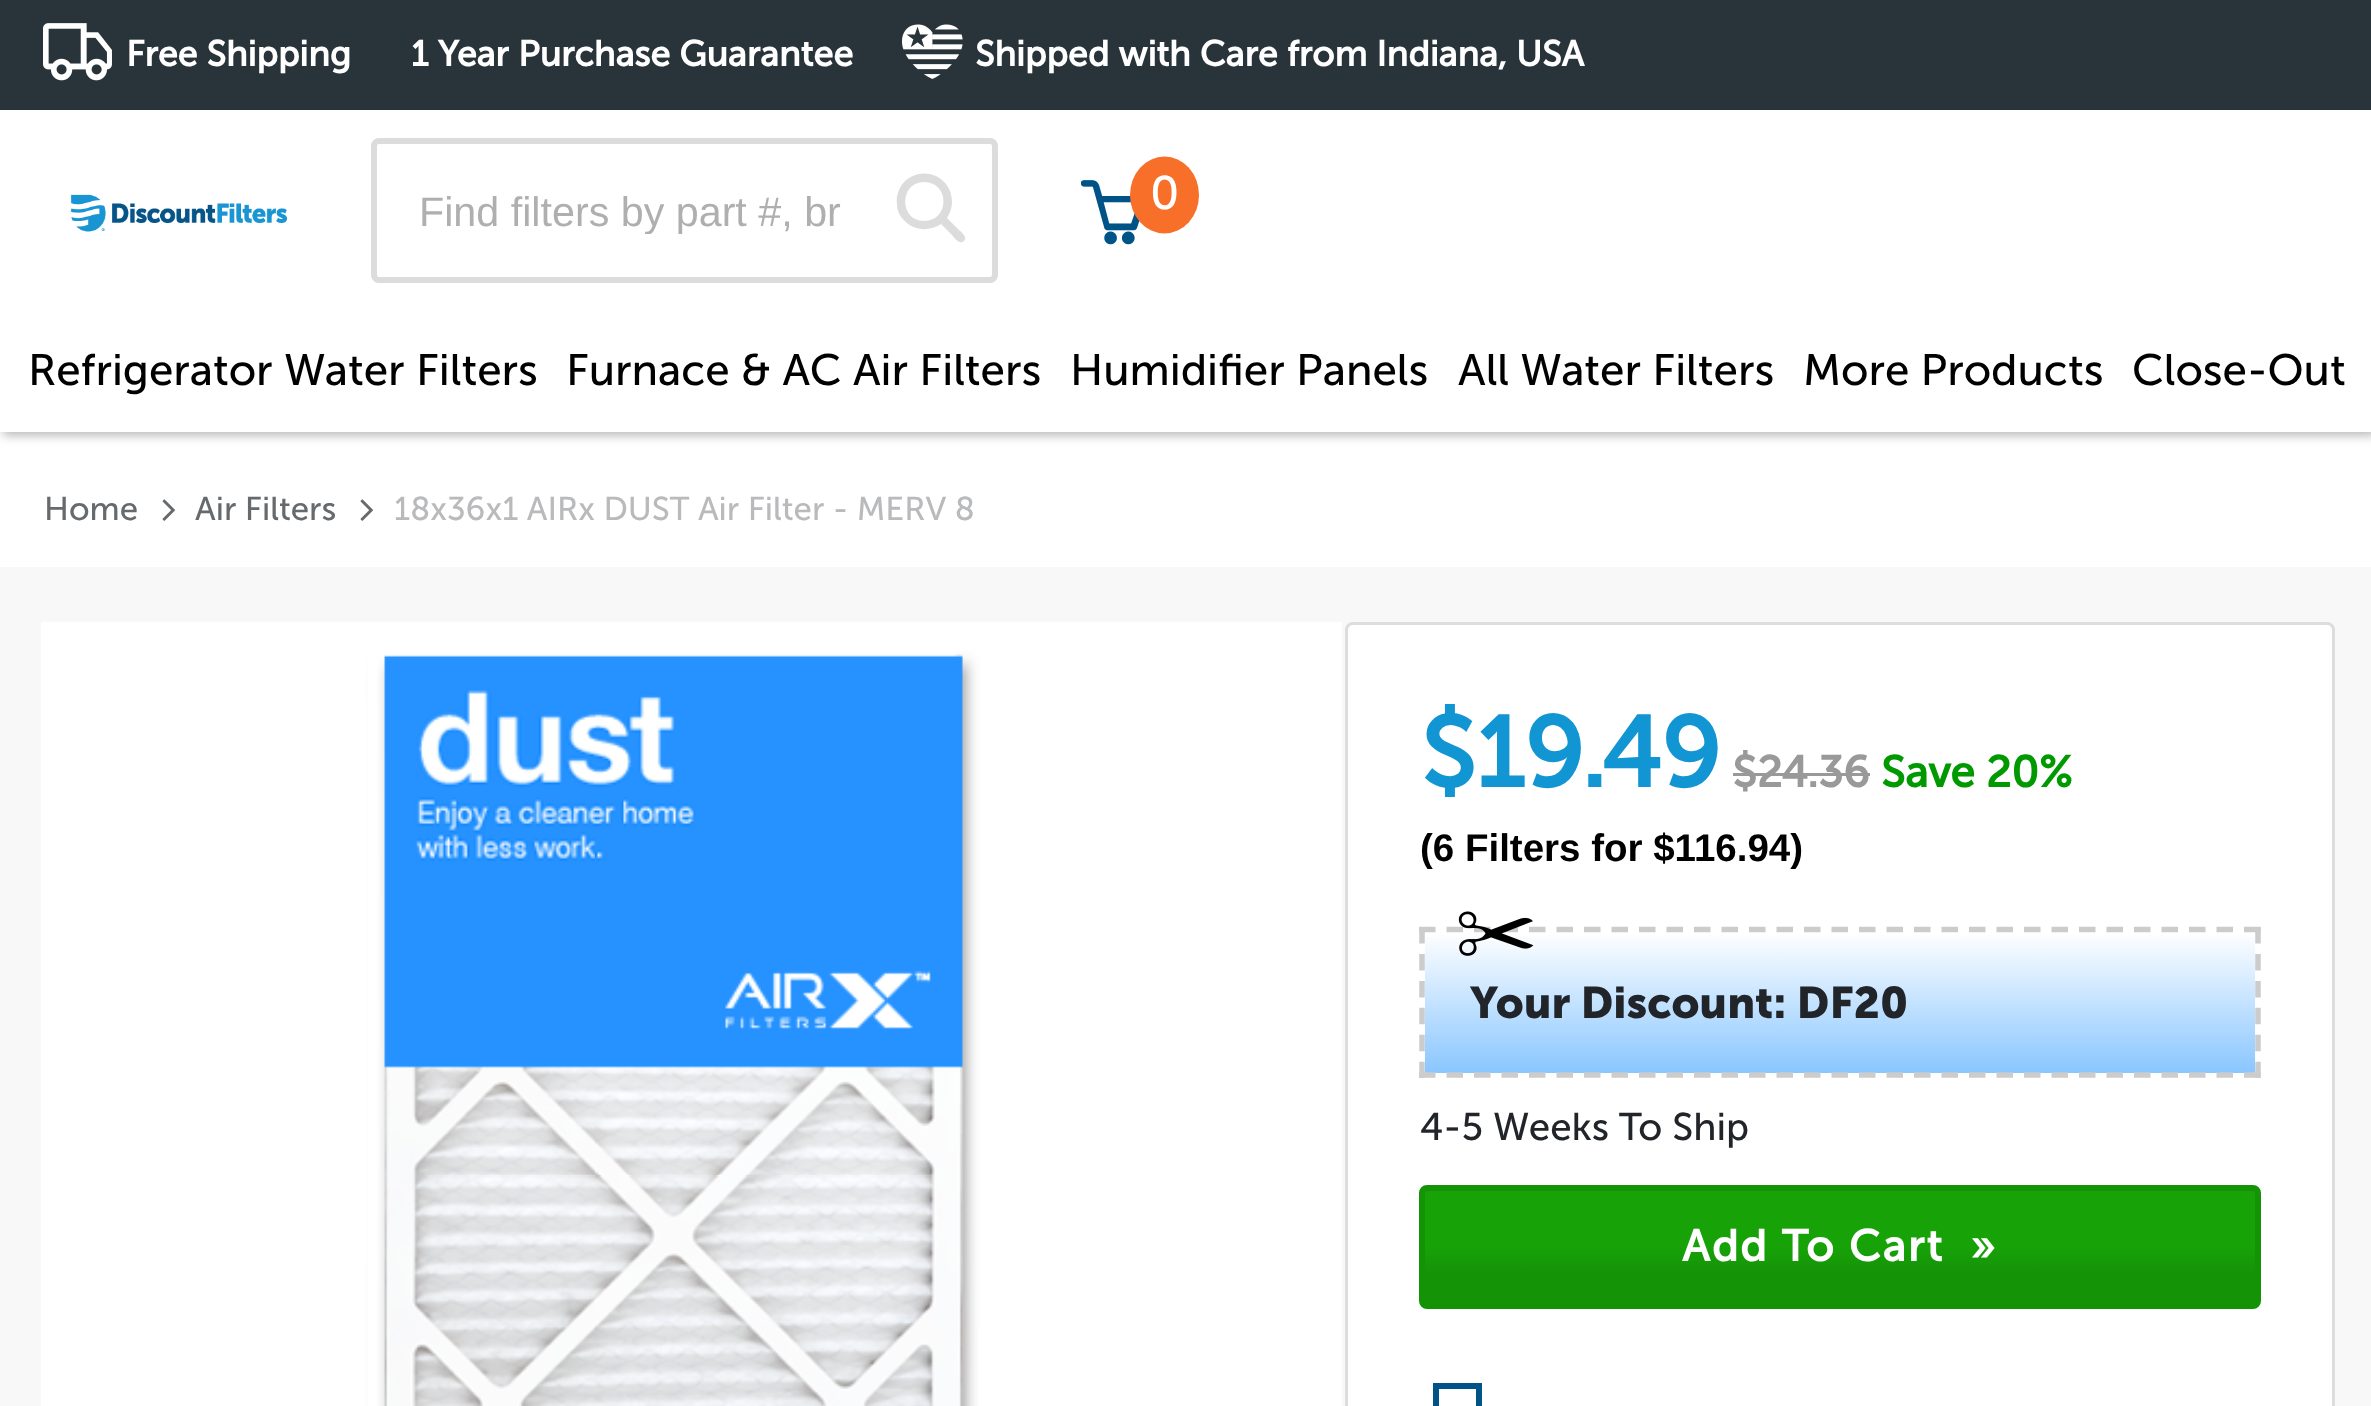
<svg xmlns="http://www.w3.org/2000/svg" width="2371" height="1406">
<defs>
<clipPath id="clip1"><rect x="418" y="187" width="426" height="47"/></clipPath>
<linearGradient id="g1" gradientUnits="userSpaceOnUse" x1="1840" y1="932" x2="1840" y2="1073"><stop offset="0" stop-color="#fff"/><stop offset="1" stop-color="#89c6ff"/></linearGradient>
<linearGradient id="g2" gradientUnits="userSpaceOnUse" x1="1840" y1="1185" x2="1840" y2="1309"><stop offset="0" stop-color="#17a208"/><stop offset="0.5" stop-color="#17a208"/><stop offset="0.71" stop-color="#159307"/><stop offset="1" stop-color="#159307"/></linearGradient>
</defs>
<rect width="100%" height="100%" fill="#fff"/>
<rect x="3" y="3" width="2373" height="432" fill="#0000004d" filter="blur(5.5px)"/>
<rect y="110" width="2371" height="322" fill="#fff"/>
<rect width="2371" height="110" fill="#29343a"/>
<image x="43" y="23" width="69" height="58" href="media/1.png"/>
<text x="126" y="66" style="font-family:Museo Sans;font-size:35.75px;font-weight:bold;fill:#fff">Free Shipping</text>
<text x="411" y="66" style="font-family:Museo Sans;font-size:35.75px;font-weight:bold;fill:#fff">1 Year Purchase Guarantee</text>
<image x="902" y="24" width="61" height="55" href="media/2.png"/>
<text x="975" y="66" style="font-family:Museo Sans;font-size:35.75px;font-weight:bold;fill:#fff">Shipped with Care from Indiana, USA</text>
<image x="70" y="194" width="218" height="38" href="media/3.png"/>
<rect x="374" y="141" width="621" height="139" rx="5" fill="none" stroke="#dcdcdc" stroke-width="6"/>
<g clip-path="url(#clip1)">
<text x="419" y="226" style="font-family:Liberation Sans;font-size:41.25px;fill:#afafaf">Find filters by part #, br</text>
</g>
<path d="M952 202c0 6-2 11-5 16l11 11c3 3 10 8 6 12c-4 4-10-3-12-6l-11-11c-10 7-25 7-34-1c-6-5-10-11-10-19c-1-6 1-13 4-18c16-23 51-12 51 16zm-28 19c26 0 26-39 0-39c-25 0-25 39 0 39z" fill="#dcdcdc"/>
<image x="1081" y="180" width="59" height="65" href="media/4.png"/>
<ellipse cx="1164.5" cy="195" rx="34.5" ry="38.5" fill="#f76f28"/>
<text x="1150" y="209" style="font-family:Museo Sans;font-size:47px;fill:#fff">0</text>
<text x="28" y="385" style="font-family:Museo Sans;font-size:44px;fill:#000">Refrigerator Water Filters</text>
<text x="566" y="385" style="font-family:Museo Sans;font-size:44px;fill:#000">Furnace &amp; AC Air Filters</text>
<text x="1070" y="385" style="font-family:Museo Sans;font-size:44px;fill:#000">Humidifier Panels</text>
<text x="1458" y="385" style="font-family:Museo Sans;font-size:44px;fill:#000">All Water Filters</text>
<text x="1803" y="385" style="font-family:Museo Sans;font-size:44px;fill:#000">More Products</text>
<text x="2132" y="385" style="font-family:Museo Sans;font-size:44px;fill:#000">Close-Out</text>
<text x="44" y="520" style="font-family:Museo Sans;font-size:33px;fill:#666a6d">Home</text>
<image x="162" y="499" width="13" height="22" href="media/5.png"/>
<text x="195" y="520" style="font-family:Museo Sans;font-size:33px;fill:#666a6d">Air Filters</text>
<image x="360" y="499" width="13" height="22" href="media/5.png"/>
<text x="394" y="520" style="font-family:Museo Sans;font-size:33px;fill:#b9babc">18x36x1 AIRx DUST Air Filter - MERV 8</text>
<rect y="567" width="2371" height="839" fill="#f8f8f8"/>
<rect x="41" y="622" width="20" height="784" fill="#fff"/>
<image x="368" y="622" width="974" height="784" href="media/6.png"/>
<image x="61" y="622" width="307" height="784" href="media/7.png"/>
<rect x="1346.5" y="623.5" width="987" height="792" rx="6.5" fill="#fff" stroke="#ddd" stroke-width="3"/>
<text x="1420" y="787" style="font-family:Museo Sans;font-size:99px;font-weight:bold;fill:#1295d3">$19.49</text>
<text x="1732" y="787" style="font-family:Museo Sans;font-size:44px;font-weight:bold;fill:#999">$24.36</text>
<rect x="1733" y="773" width="137" height="3" fill="#999"/>
<text x="1881" y="787" style="font-family:Museo Sans;font-size:44px;font-weight:bold;fill:#090">Save 20%</text>
<text x="1420" y="861" style="font-family:Liberation Sans;font-size:38.5px;font-weight:bold;fill:#000">(6 Filters for $116.94)</text>
<rect x="1425" y="935" width="830" height="138" fill="url(#g1)"/>
<path d="M1419 929.5h841.5" fill="none" stroke="#ccc" stroke-width="5.5" stroke-dasharray="16.5 11"/>
<path d="M2258 927v151" fill="none" stroke="#ccc" stroke-width="5.5" stroke-dasharray="16.5 10.45"/>
<path d="M1419 1075h841.5" fill="none" stroke="#ccc" stroke-width="5.5" stroke-dasharray="16.5 11"/>
<path d="M1422 927v151" fill="none" stroke="#ccc" stroke-width="5.5" stroke-dasharray="16.5 10.45"/>
<image x="1458" y="911" width="76" height="45" href="media/8.png"/>
<text x="1470" y="1018" style="font-family:'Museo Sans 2';font-size:44px;font-weight:bold;fill:#212529">Your Discount: DF20</text>
<text x="1420" y="1140" style="font-family:Museo Sans;font-size:38.5px;fill:#212529">4-5 Weeks To Ship</text>
<rect x="1422" y="1188" width="836" height="118" rx="5" fill="url(#g2)" stroke="#159307" stroke-width="6"/>
<text x="1682" y="1261" style="font-family:Museo Sans;font-size:44px;font-weight:bold;letter-spacing:2px;fill:#fff" xml:space="preserve">Add To Cart  »</text>
<rect x="1436" y="1386" width="43" height="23" fill="none" stroke="#005387" stroke-width="6"/>
</svg>
